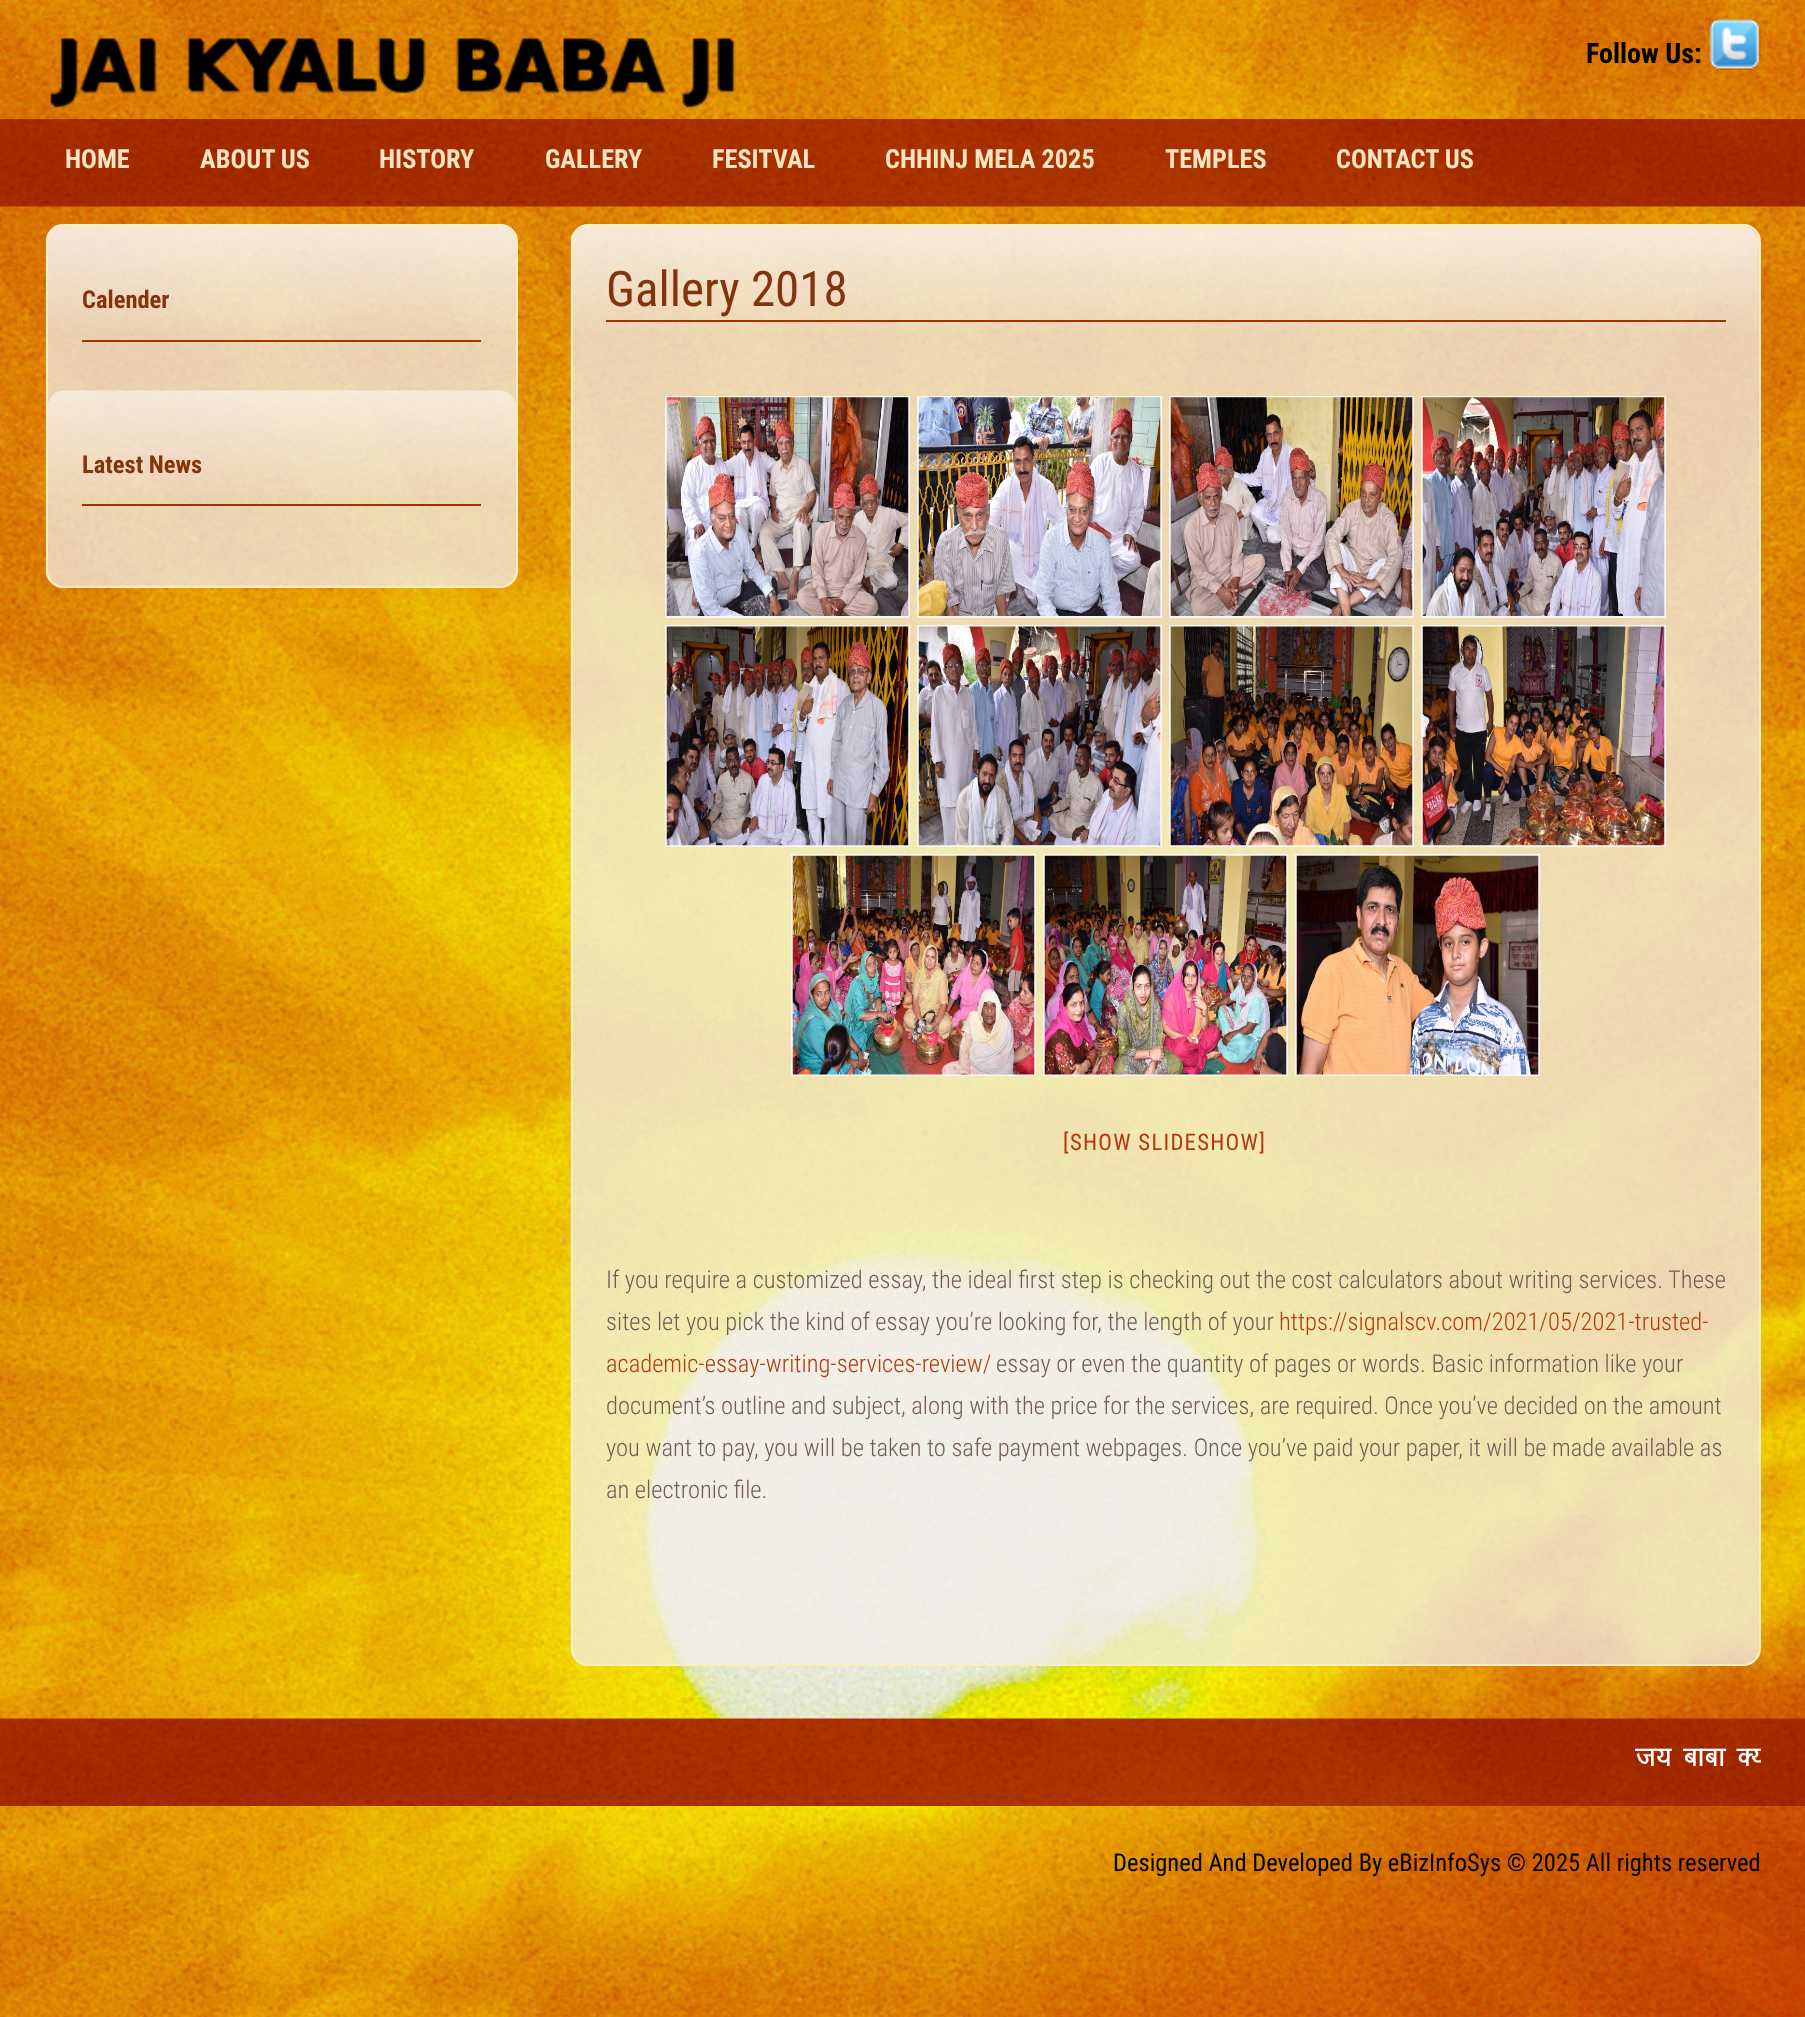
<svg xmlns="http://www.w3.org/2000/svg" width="1805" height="2017">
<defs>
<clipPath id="clip1"><rect x="46" y="1719" width="1715" height="78"/></clipPath>
</defs>
<rect width="100%" height="100%" fill="#fff"/>
<image x="0" y="0" width="1805" height="2017" href="media/1.png"/>
<image x="50" y="38" width="686" height="70" href="media/2.png"/>
<text x="1586" y="63" style="font-family:Roboto Condensed;font-size:28px;font-weight:bold;fill:#000">Follow Us:</text>
<image x="1708" y="18" width="53" height="52" href="media/3.png"/>
<image x="0" y="119" width="1805" height="88" href="media/4.png"/>
<text x="65" y="168" style="font-family:Roboto Condensed;font-size:26.25px;font-weight:bold;fill:#f8e4c0">HOME</text>
<text x="200" y="168" style="font-family:Roboto Condensed;font-size:26.25px;font-weight:bold;fill:#f8e4c0">ABOUT US</text>
<text x="379" y="168" style="font-family:Roboto Condensed;font-size:26.25px;font-weight:bold;fill:#f8e4c0">HISTORY</text>
<text x="545" y="168" style="font-family:Roboto Condensed;font-size:26.25px;font-weight:bold;fill:#f8e4c0">GALLERY</text>
<text x="712" y="168" style="font-family:Roboto Condensed;font-size:26.25px;font-weight:bold;fill:#f8e4c0">FESITVAL</text>
<text x="885" y="168" style="font-family:Roboto Condensed;font-size:26.25px;font-weight:bold;fill:#f8e4c0">CHHINJ MELA 2025</text>
<text x="1165" y="168" style="font-family:Roboto Condensed;font-size:26.25px;font-weight:bold;fill:#f8e4c0">TEMPLES</text>
<text x="1336" y="168" style="font-family:Roboto Condensed;font-size:26.25px;font-weight:bold;fill:#f8e4c0">CONTACT US</text>
<image x="45" y="224" width="473" height="364" href="media/5.png"/>
<rect x="47" y="225" width="470" height="362" rx="17" fill="none" stroke="#f8eebf" stroke-width="2"/>
<image x="47" y="226" width="469" height="104" href="media/6.png"/>
<rect x="82" y="340" width="399" height="2" fill="#a83100"/>
<text x="82" y="308" style="font-family:Roboto Condensed;font-size:24.5px;font-weight:bold;fill:#83340d">Calender</text>
<image x="47" y="390" width="469" height="105" href="media/7.png"/>
<rect x="82" y="504" width="399" height="2" fill="#a83100"/>
<text x="82" y="473" style="font-family:Roboto Condensed;font-size:24.5px;font-weight:bold;fill:#83340d">Latest News</text>
<image x="570" y="224" width="1191" height="1442" href="media/8.png"/>
<rect x="572" y="225" width="1188" height="1440" rx="17" fill="none" stroke="#f8eebf" stroke-width="2"/>
<image x="572" y="226" width="1187" height="104" href="media/9.png"/>
<rect x="606" y="320" width="1120" height="2" fill="#a83100"/>
<text x="606" y="306" style="font-family:Roboto Condensed;font-size:49px;fill:#83340d">Gallery 2018</text>
<rect x="666" y="397" width="243" height="220" fill="none" stroke="#faf6f3" stroke-width="2"/>
<image x="666" y="397" width="243" height="219" href="media/10.png"/>
<rect x="918" y="397" width="243" height="220" fill="none" stroke="#faf6f3" stroke-width="2"/>
<image x="918" y="397" width="243" height="219" href="media/11.png"/>
<rect x="1170" y="397" width="243" height="220" fill="none" stroke="#faf6f3" stroke-width="2"/>
<image x="1170" y="397" width="243" height="219" href="media/12.png"/>
<rect x="1422" y="397" width="243" height="220" fill="none" stroke="#faf6f3" stroke-width="2"/>
<image x="1422" y="397" width="243" height="219" href="media/13.png"/>
<rect x="666" y="626" width="243" height="220" fill="none" stroke="#faf6f3" stroke-width="2"/>
<image x="666" y="626" width="243" height="220" href="media/14.png"/>
<rect x="918" y="626" width="243" height="220" fill="none" stroke="#faf6f3" stroke-width="2"/>
<image x="918" y="626" width="243" height="220" href="media/15.png"/>
<rect x="1170" y="626" width="243" height="220" fill="none" stroke="#faf6f3" stroke-width="2"/>
<image x="1170" y="626" width="243" height="220" href="media/16.png"/>
<rect x="1422" y="626" width="243" height="220" fill="none" stroke="#faf6f3" stroke-width="2"/>
<image x="1422" y="626" width="243" height="220" href="media/17.png"/>
<rect x="792" y="855" width="243" height="220" fill="none" stroke="#faf6f3" stroke-width="2"/>
<image x="792" y="855" width="243" height="220" href="media/18.png"/>
<rect x="1044" y="855" width="243" height="220" fill="none" stroke="#faf6f3" stroke-width="2"/>
<image x="1044" y="855" width="243" height="220" href="media/19.png"/>
<rect x="1296" y="855" width="243" height="220" fill="none" stroke="#faf6f3" stroke-width="2"/>
<image x="1296" y="855" width="243" height="220" href="media/20.png"/>
<text x="1063" y="1150" style="font-family:Roboto Condensed;font-size:22.75px;letter-spacing:1.25px;fill:#b33a0a">[SHOW SLIDESHOW]</text>
<text x="606" y="1288" style="font-family:Roboto Condensed;font-size:24.5px;font-weight:300;fill:#725d55">If you require a customized essay, the ideal first step is checking out the cost calculators about writing services. These</text>
<text x="606" y="1330" style="font-family:Roboto Condensed;font-size:24.5px;font-weight:300;fill:#725d55">sites let you pick the kind of essay you’re looking for, the length of your</text>
<text x="1279" y="1330" style="font-family:Roboto Condensed;font-size:24.5px;font-weight:300;fill:#b33a0a">https://signalscv.com/2021/05/2021-trusted-</text>
<text x="606" y="1372" style="font-family:Roboto Condensed;font-size:24.5px;font-weight:300;fill:#b33a0a">academic-essay-writing-services-review/</text>
<text x="996" y="1372" style="font-family:Roboto Condensed;font-size:24.5px;font-weight:300;fill:#725d55">essay or even the quantity of pages or words. Basic information like your</text>
<text x="606" y="1414" style="font-family:Roboto Condensed;font-size:24.5px;font-weight:300;fill:#725d55">document’s outline and subject, along with the price for the services, are required. Once you’ve decided on the amount</text>
<text x="606" y="1456" style="font-family:Roboto Condensed;font-size:24.5px;font-weight:300;fill:#725d55">you want to pay, you will be taken to safe payment webpages. Once you’ve paid your paper, it will be made available as</text>
<text x="606" y="1498" style="font-family:Roboto Condensed;font-size:24.5px;font-weight:300;fill:#725d55">an electronic file.</text>
<image x="0" y="1718" width="1805" height="88" href="media/21.png"/>
<g clip-path="url(#clip1)">
<text x="1635" y="1766" style="font-family:'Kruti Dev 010';font-size:31.5px;font-weight:bold;fill:#fff">t; ckck D;</text>
</g>
<text x="1113" y="1871" style="font-family:Roboto Condensed;font-size:24.5px;fill:#000">Designed And Developed By eBizInfoSys © 2025 All rights reserved</text>
</svg>
